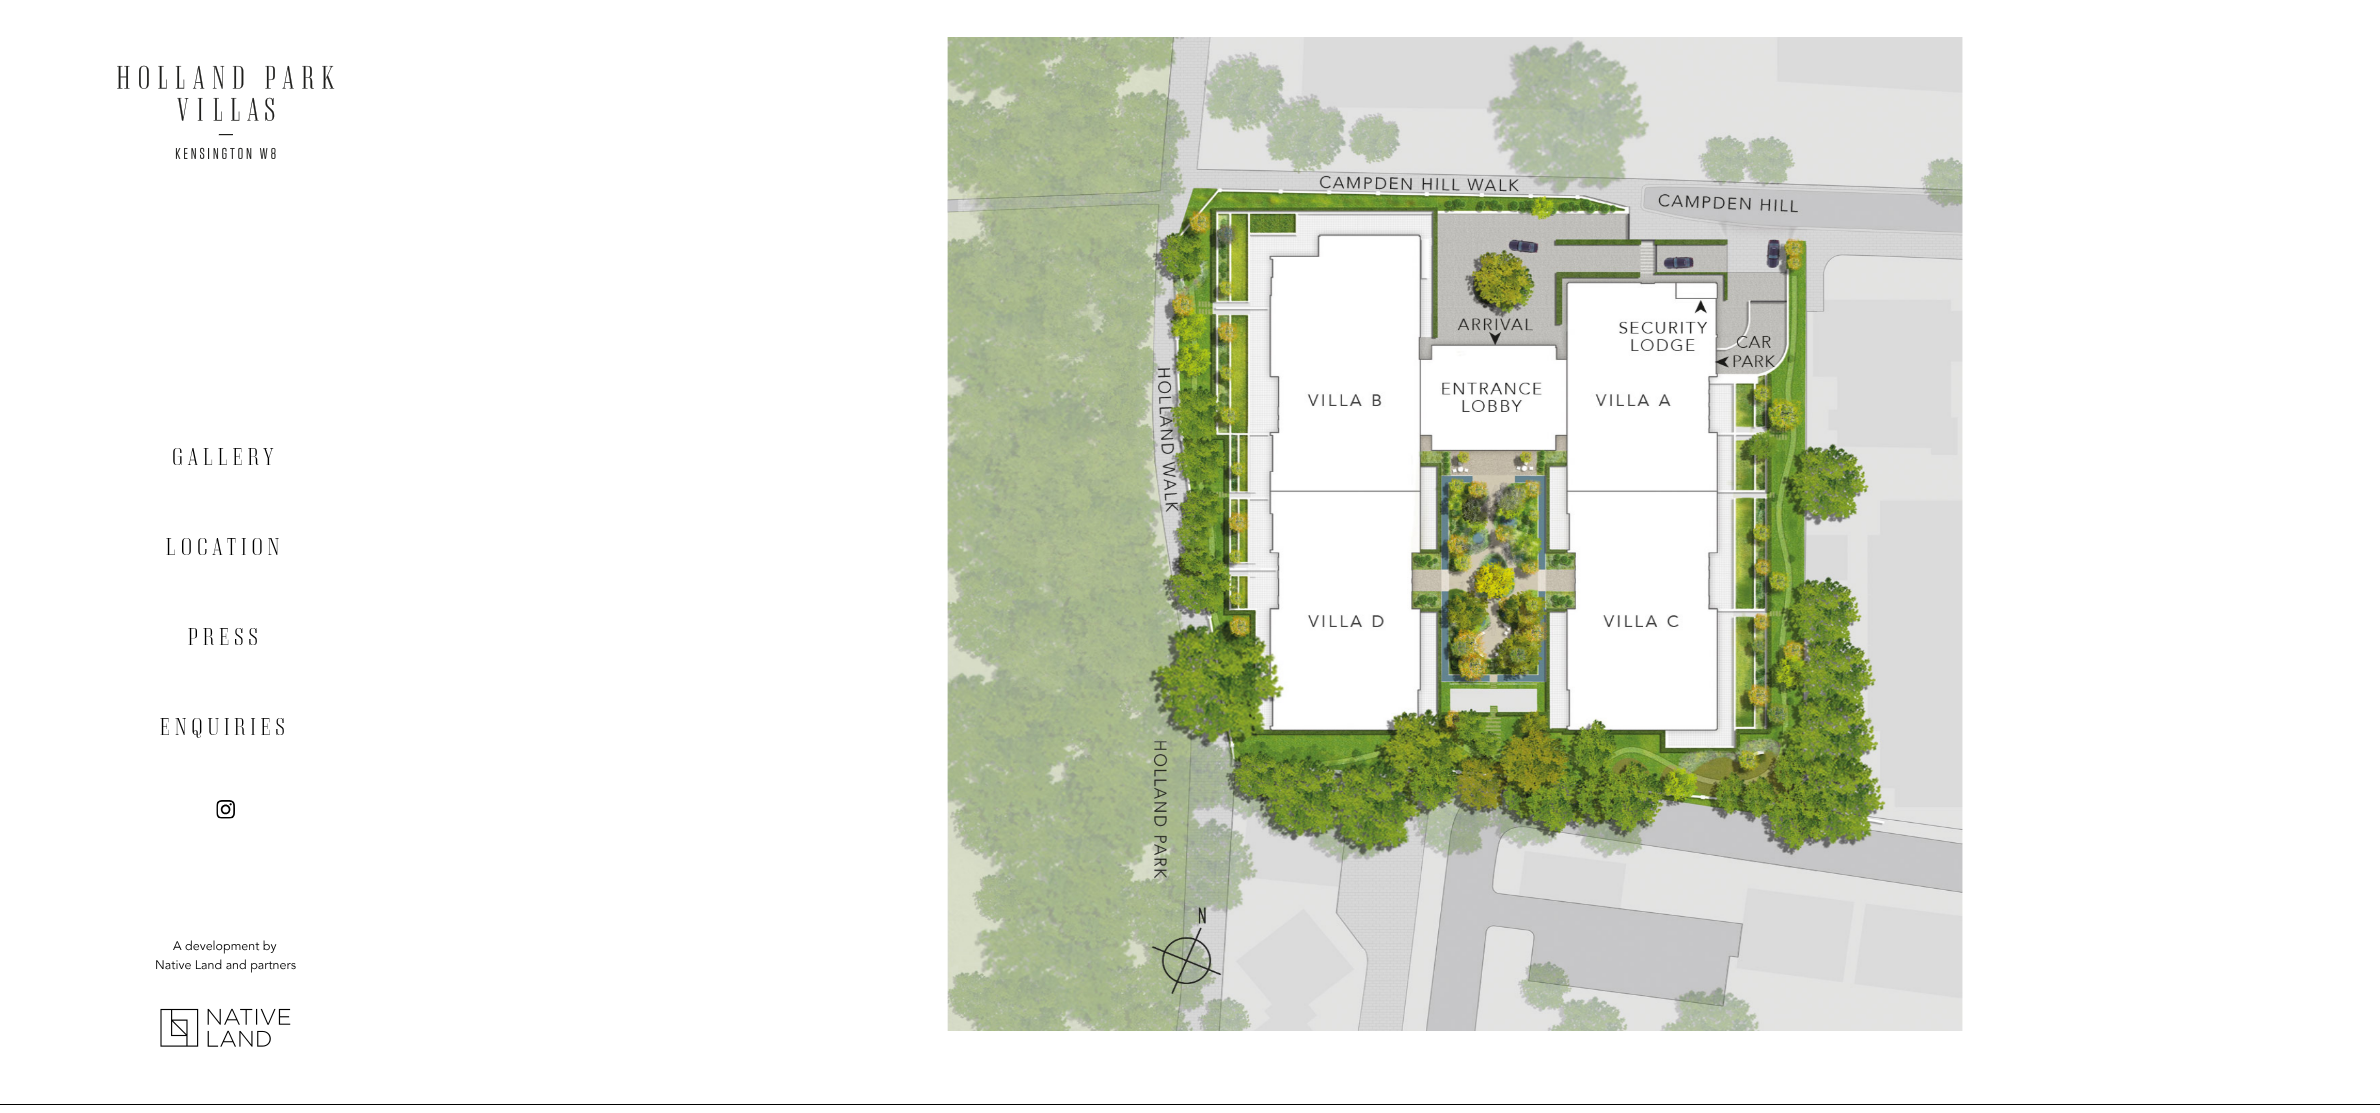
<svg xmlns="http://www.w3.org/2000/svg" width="2380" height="1113">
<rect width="100%" height="100%" fill="#fff"/>
<image x="117" y="65" width="218" height="94" href="media/1.png"/>
<text x="172" y="465" style="font-family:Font;font-size:25px;letter-spacing:5px;fill:#000">GALLERY</text>
<text x="166" y="555" style="font-family:Font;font-size:25px;letter-spacing:5px;fill:#000">LOCATION</text>
<text x="188" y="645" style="font-family:Font;font-size:25px;letter-spacing:5px;fill:#000">PRESS</text>
<text x="160" y="735" style="font-family:Font;font-size:25px;letter-spacing:5px;fill:#000">ENQUIRIES</text>
<image x="216" y="800" width="19" height="19" href="media/2.png"/>
<text x="173" y="950" style="font-family:'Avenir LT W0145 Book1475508';font-size:12.5px;fill:#000">A development by</text>
<text x="155" y="969" style="font-family:'Avenir LT W0145 Book1475508';font-size:12.5px;fill:#000">Native Land and partners</text>
<image x="160" y="1008" width="131" height="39" href="media/3.png"/>
<image x="947" y="37" width="1016" height="994" href="media/4.png"/>
<rect y="1104" width="2380" height="1" fill="#000"/>
</svg>
